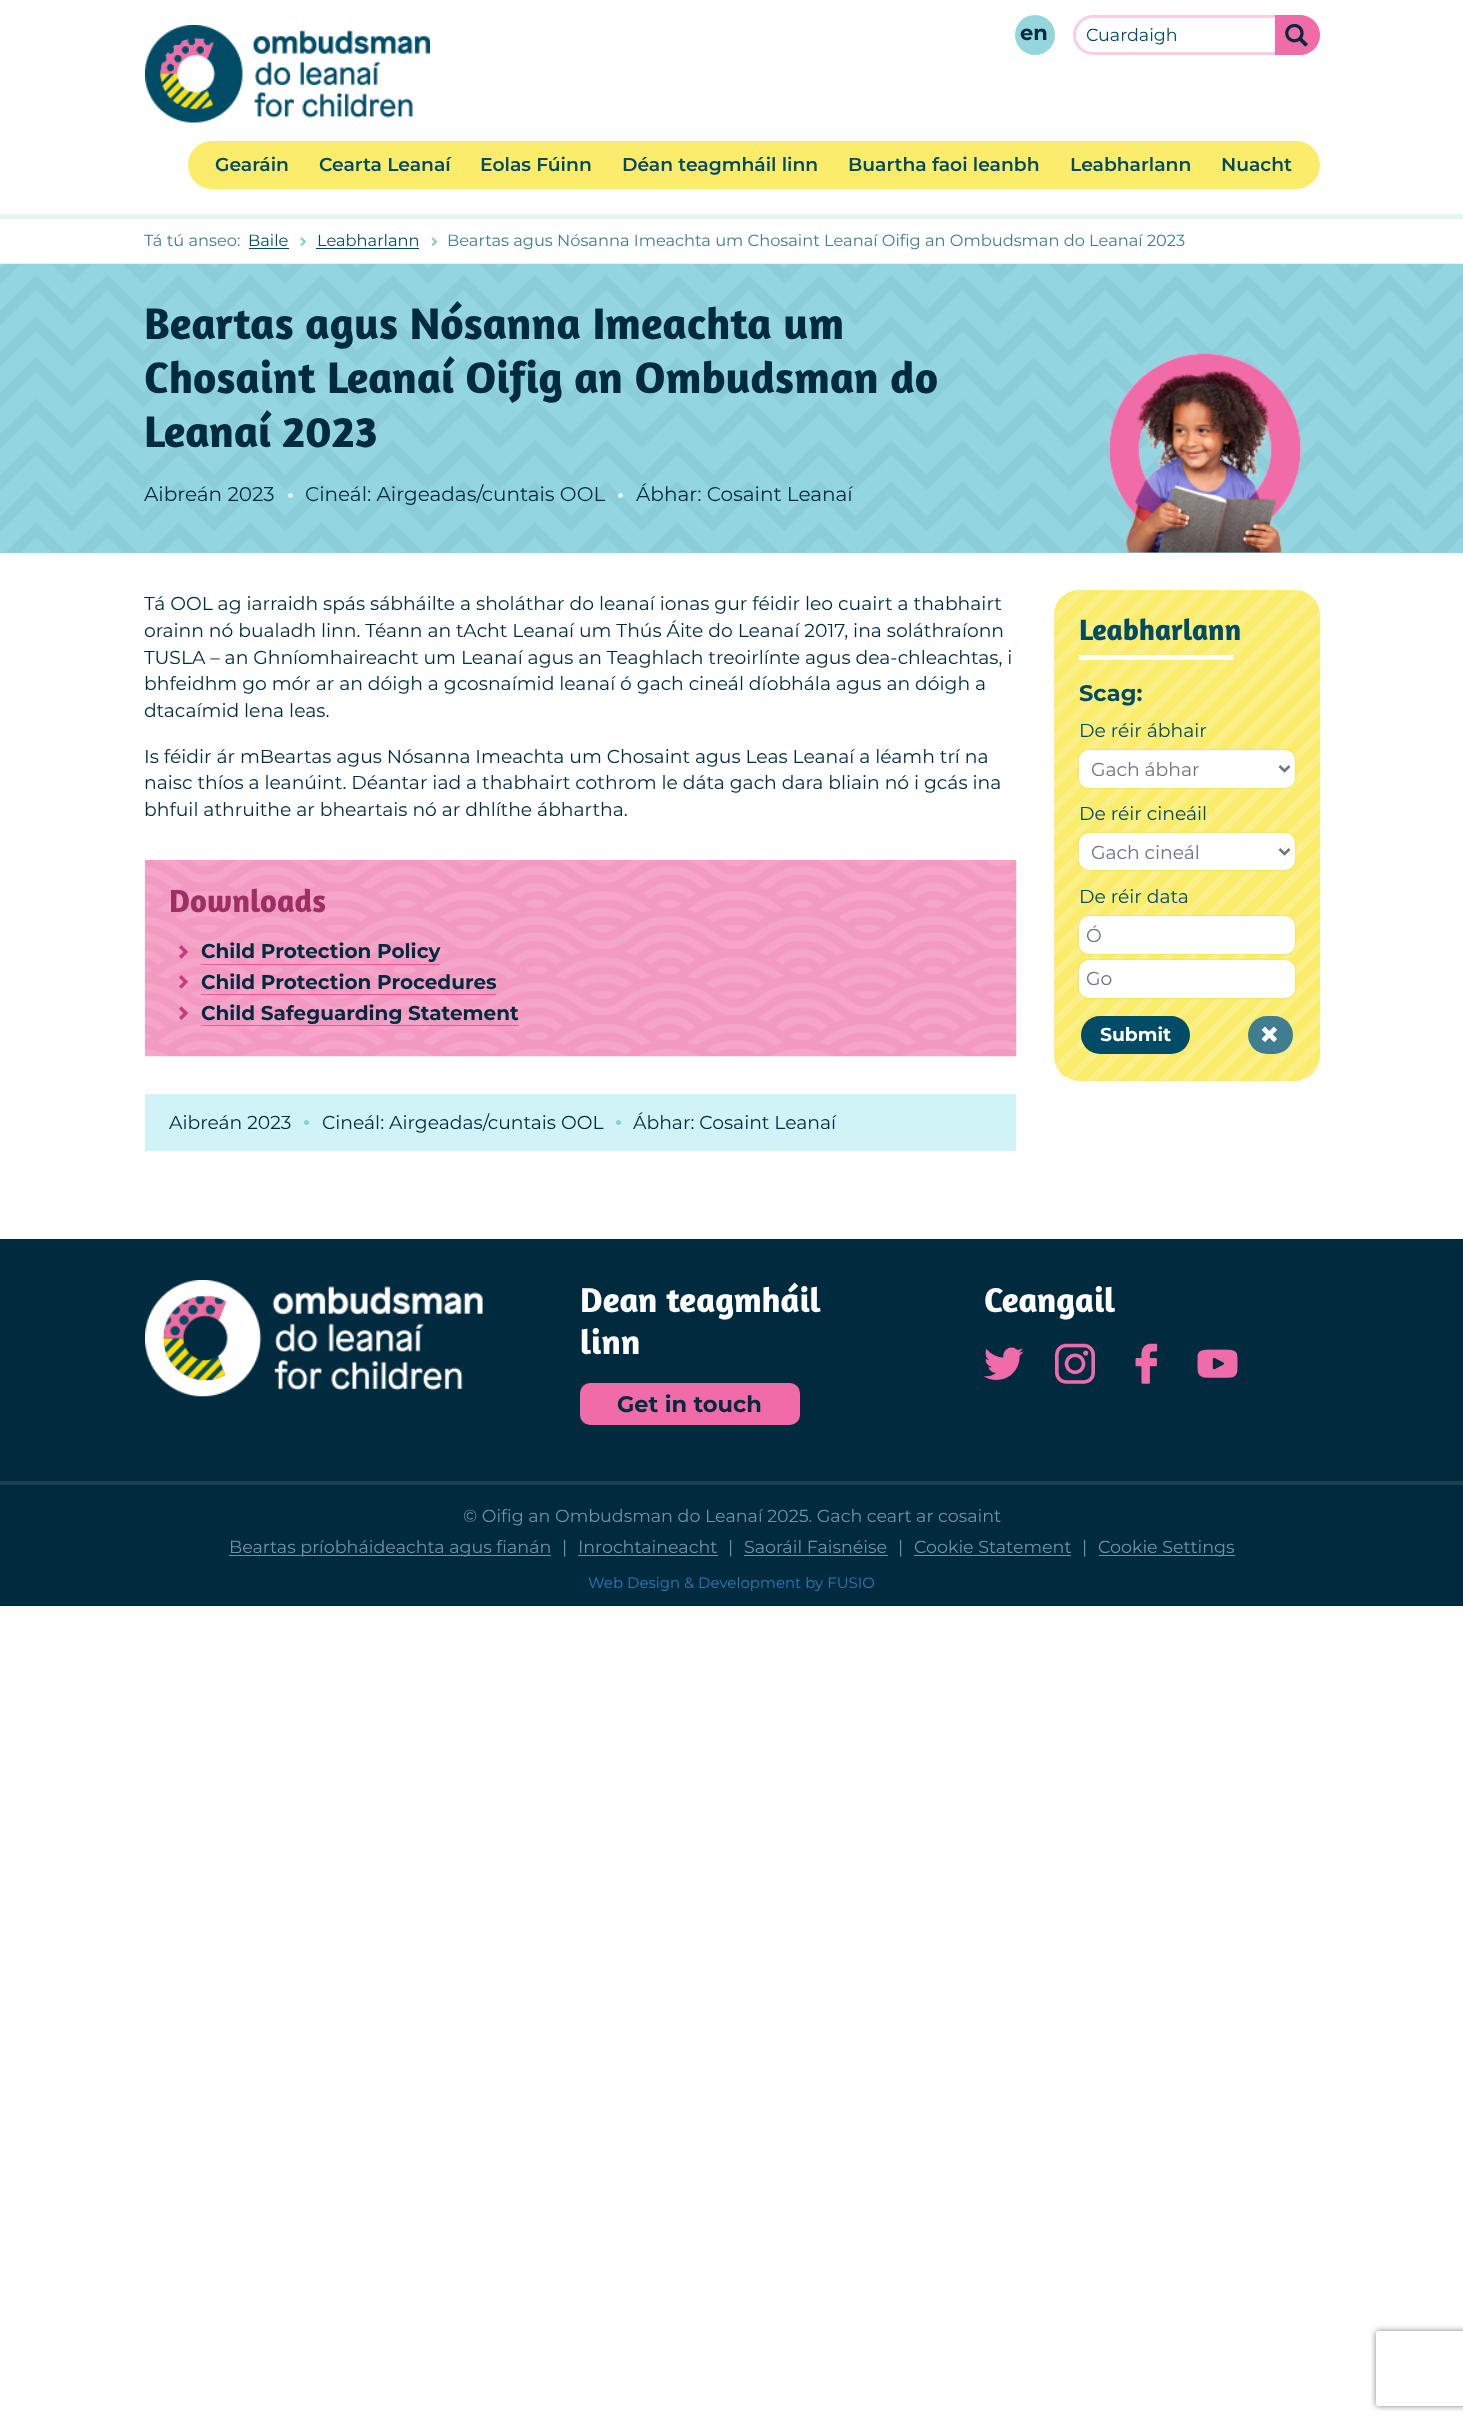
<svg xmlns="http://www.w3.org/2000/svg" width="1463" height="2423">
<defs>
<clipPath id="clip1"><path d="M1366 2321h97v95h-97zm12.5 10h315c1.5 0 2.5 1 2.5 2.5v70c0 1.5-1 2.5-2.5 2.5h-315c-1.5 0-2.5-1-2.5-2.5v-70c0-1.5 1-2.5 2.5-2.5z" clip-rule="evenodd"/></clipPath>
</defs>
<rect width="100%" height="100%" fill="#fff"/>
<rect y="214" width="1463" height="5" fill="#e4f5f7"/>
<image x="145" y="25" width="285" height="98" href="media/1.png"/>
<circle cx="1035" cy="35" r="20" fill="#94d6dc"/>
<text x="1020" y="40" style="font-family:Montserrat;font-size:21px;font-weight:bold;fill:#002a3e">en</text>
<path d="M1093 16.5h184.5v37h-184.5c-10 0-18.5-8.5-18.5-18.5c0-10 8.5-18.5 18.5-18.5z" fill="none" stroke="#facee2" stroke-width="3"/>
<text x="1086" y="41" style="font-family:Montserrat;font-size:17.5px;fill:#004b65">Cuardaigh</text>
<path d="M1275 15h25c11 0 20 9 20 20c0 11-9 20-20 20h-25z" fill="#f06ba7"/>
<image x="1285" y="23" width="23" height="24" href="media/2.png"/>
<rect x="188" y="141" width="1132" height="48" rx="24" fill="#fbec6b"/>
<text x="215" y="171" style="font-family:Montserrat;font-size:18.75px;font-weight:600;fill:#004b65">Gearáin</text>
<text x="319" y="171" style="font-family:Montserrat;font-size:18.75px;font-weight:600;fill:#004b65">Cearta Leanaí</text>
<text x="480" y="171" style="font-family:Montserrat;font-size:18.75px;font-weight:600;fill:#004b65">Eolas Fúinn</text>
<text x="622" y="171" style="font-family:Montserrat;font-size:18.75px;font-weight:600;fill:#004b65">Déan teagmháil linn</text>
<text x="848" y="171" style="font-family:Montserrat;font-size:18.75px;font-weight:600;fill:#004b65">Buartha faoi leanbh</text>
<text x="1070" y="171" style="font-family:Montserrat;font-size:18.75px;font-weight:600;fill:#004b65">Leabharlann</text>
<text x="1221" y="171" style="font-family:Montserrat;font-size:18.75px;font-weight:600;fill:#004b65">Nuacht</text>
<text x="144" y="246" style="font-family:Montserrat;font-size:16.25px;fill:#417d90">Tá tú anseo:</text>
<text x="248" y="246" style="font-family:Montserrat;font-size:16.25px;fill:#004b65">Baile</text>
<rect x="249" y="248" width="40" height="1" fill="#004b65"/>
<image x="300" y="237" width="7" height="10" href="media/3.png"/>
<text x="317" y="246" style="font-family:Montserrat;font-size:16.25px;fill:#004b65">Leabharlann</text>
<rect x="316" y="248" width="103" height="1" fill="#004b65"/>
<image x="431" y="237" width="7" height="10" href="media/4.png"/>
<text x="447" y="246" style="font-family:Montserrat;font-size:16.25px;fill:#417d90">Beartas agus Nósanna Imeachta um Chosaint Leanaí Oifig an Ombudsman do Leanaí 2023</text>
<rect y="552" width="1463" height="1" fill="#93d6e1"/>
<image x="0" y="263" width="1463" height="290" href="media/5.png"/>
<image x="1108" y="353" width="194" height="200" href="media/6.png"/>
<text x="144" y="339" style="font-family:Amaranth;font-size:45px;font-weight:bold;fill:#002a3e">Beartas agus Nósanna Imeachta um</text>
<text x="144" y="393" style="font-family:Amaranth;font-size:45px;font-weight:bold;fill:#002a3e">Chosaint Leanaí Oifig an Ombudsman do</text>
<text x="144" y="447" style="font-family:Amaranth;font-size:45px;font-weight:bold;fill:#002a3e">Leanaí 2023</text>
<text x="144" y="501" style="font-family:Montserrat;font-size:20px;fill:#002a3e">Aibreán 2023</text>
<circle cx="290.5" cy="495.5" r="2.5" fill="#e1f3fc"/>
<text x="305" y="501" style="font-family:Montserrat;font-size:20px;fill:#002a3e">Cineál: Airgeadas/cuntais OOL</text>
<circle cx="620.5" cy="495.5" r="2.5" fill="#e1f3fc"/>
<text x="636" y="501" style="font-family:Montserrat;font-size:20px;fill:#002a3e">Ábhar: Cosaint Leanaí</text>
<text x="144" y="610" style="font-family:Montserrat;font-size:18.75px;fill:#002a3e">Tá OOL ag iarraidh spás sábháilte a sholáthar do leanaí ionas gur féidir leo cuairt a thabhairt</text>
<text x="144" y="637" style="font-family:Montserrat;font-size:18.75px;fill:#002a3e">orainn nó bualadh linn. Téann an tAcht Leanaí um Thús Áite do Leanaí 2017, ina soláthraíonn</text>
<text x="144" y="664" style="font-family:Montserrat;font-size:18.75px;fill:#002a3e">TUSLA – an Ghníomhaireacht um Leanaí agus an Teaghlach treoirlínte agus dea-chleachtas, i</text>
<text x="144" y="690" style="font-family:Montserrat;font-size:18.75px;fill:#002a3e">bhfeidhm go mór ar an dóigh a gcosnaímid leanaí ó gach cineál díobhála agus an dóigh a</text>
<text x="144" y="717" style="font-family:Montserrat;font-size:18.75px;fill:#002a3e">dtacaímid lena leas.</text>
<text x="144" y="763" style="font-family:Montserrat;font-size:18.75px;fill:#002a3e">Is féidir ár mBeartas agus Nósanna Imeachta um Chosaint agus Leas Leanaí a léamh trí na</text>
<text x="144" y="789" style="font-family:Montserrat;font-size:18.75px;fill:#002a3e">naisc thíos a leanúint. Déantar iad a thabhairt cothrom le dáta gach dara bliain nó i gcás ina</text>
<text x="144" y="816" style="font-family:Montserrat;font-size:18.75px;fill:#002a3e">bhfuil athruithe ar bheartais nó ar dhlíthe ábhartha.</text>
<image x="145" y="860" width="872" height="197" href="media/7.png"/>
<text x="169" y="912" style="font-family:Amaranth;font-size:32.5px;font-weight:bold;fill:#9c3062">Downloads</text>
<image x="179" y="945" width="10" height="14" href="media/8.png"/>
<text x="201" y="958" style="font-family:Montserrat;font-size:20px;font-weight:bold;fill:#002a3e">Child Protection Policy</text>
<rect x="201" y="964" width="239" height="1" fill="#ec5899"/>
<image x="179" y="975" width="10" height="14" href="media/9.png"/>
<text x="201" y="989" style="font-family:Montserrat;font-size:20px;font-weight:bold;fill:#002a3e">Child Protection Procedures</text>
<rect x="201" y="994" width="295" height="1" fill="#ec5899"/>
<image x="179" y="1006" width="10" height="14" href="media/10.png"/>
<text x="201" y="1020" style="font-family:Montserrat;font-size:20px;font-weight:bold;fill:#002a3e">Child Safeguarding Statement</text>
<rect x="201" y="1025" width="318" height="1" fill="#ec5899"/>
<rect x="145" y="1094" width="871" height="57" fill="#cff3f6"/>
<text x="169" y="1129" style="font-family:Montserrat;font-size:18.75px;fill:#002a3e">Aibreán 2023</text>
<circle cx="306.5" cy="1122.5" r="2.5" fill="#8bced9"/>
<text x="322" y="1129" style="font-family:Montserrat;font-size:18.75px;fill:#002a3e">Cineál: Airgeadas/cuntais OOL</text>
<circle cx="618.5" cy="1122.5" r="2.5" fill="#8bced9"/>
<text x="633" y="1129" style="font-family:Montserrat;font-size:18.75px;fill:#002a3e">Ábhar: Cosaint Leanaí</text>
<rect x="1054" y="590" width="266" height="491" rx="25" fill="#fbec6b"/>
<image x="1054" y="590" width="266" height="491" href="media/11.png"/>
<rect x="1079" y="655" width="154" height="5" fill="#fff"/>
<text x="1079" y="640" style="font-family:Amaranth;font-size:30px;font-weight:bold;fill:#004b65">Leabharlann</text>
<text x="1079" y="701" style="font-family:Montserrat;font-size:22.5px;font-weight:bold;fill:#004b65">Scag:</text>
<text x="1079" y="737" style="font-family:Montserrat;font-size:18.75px;fill:#004b65">De réir ábhair</text>
<rect x="1079" y="750" width="216" height="38" rx="10" fill="#bda6114d" filter="blur(1px)"/>
<rect x="1079" y="750" width="216" height="38" rx="10" fill="#fff"/>
<path d="M1279.5 766l5 5l5-5" fill="none" stroke="#6e767a" stroke-width="2.5"/>
<text x="1091" y="776" style="font-family:Montserrat;font-size:18.75px;fill:#6e767a">Gach ábhar</text>
<text x="1079" y="820" style="font-family:Montserrat;font-size:18.75px;fill:#004b65">De réir cineáil</text>
<rect x="1079" y="833" width="216" height="37" rx="10" fill="#bda6114d" filter="blur(1px)"/>
<rect x="1079" y="833" width="216" height="37" rx="10" fill="#fff"/>
<path d="M1279.5 849l5 5l5-5" fill="none" stroke="#6e767a" stroke-width="2.5"/>
<text x="1091" y="859" style="font-family:Montserrat;font-size:18.75px;fill:#6e767a">Gach cineál</text>
<text x="1079" y="903" style="font-family:Montserrat;font-size:18.75px;fill:#004b65">De réir data</text>
<rect x="1079" y="916" width="216" height="38" rx="10" fill="#bda6114d" filter="blur(1px)"/>
<rect x="1079" y="916" width="216" height="38" rx="10" fill="#fff"/>
<text x="1086" y="942" style="font-family:Montserrat;font-size:18.75px;fill:#6e767a">Ó</text>
<rect x="1079" y="960" width="216" height="38" rx="10" fill="#bda6114d" filter="blur(1px)"/>
<rect x="1079" y="960" width="216" height="38" rx="10" fill="#fff"/>
<text x="1086" y="985" style="font-family:Montserrat;font-size:18.75px;fill:#6e767a">Go</text>
<rect x="1081" y="1016" width="109" height="38" rx="19" fill="#004b65"/>
<text x="1100" y="1041" style="font-family:Montserrat;font-size:18.75px;font-weight:bold;fill:#fff">Submit</text>
<rect x="1248" y="1016" width="45" height="38" rx="19" fill="#417d90"/>
<image x="1261" y="1026" width="16" height="16" href="media/12.png"/>
<rect y="1239" width="1463" height="367" fill="#002a3e"/>
<rect y="1481" width="1463" height="4" fill="#1a4052"/>
<image x="145" y="1280" width="338" height="117" href="media/13.png"/>
<text x="580" y="1312" style="font-family:Amaranth;font-size:35px;font-weight:bold;fill:#fff">Dean teagmháil</text>
<text x="580" y="1354" style="font-family:Amaranth;font-size:35px;font-weight:bold;fill:#fff">linn</text>
<rect x="580" y="1383" width="220" height="42" rx="10" fill="#f06ba7"/>
<text x="617" y="1412" style="font-family:Montserrat;font-size:22.5px;font-weight:bold;fill:#002a3e">Get in touch</text>
<text x="984" y="1312" style="font-family:Amaranth;font-size:35px;font-weight:bold;fill:#fff">Ceangail</text>
<image x="983" y="1347" width="41" height="33" href="media/14.png"/>
<image x="1055" y="1343" width="40" height="41" href="media/15.png"/>
<image x="1135" y="1343" width="23" height="41" href="media/16.png"/>
<image x="1197" y="1349" width="41" height="29" href="media/17.png"/>
<text x="463" y="1522" style="font-family:Montserrat;font-size:17.5px;fill:#6a94a8">© Oifig an Ombudsman do Leanaí 2025. Gach ceart ar cosaint</text>
<rect x="229" y="1555" width="322" height="1" fill="#6a94a8"/>
<text x="229" y="1553" style="font-family:Montserrat;font-size:17.5px;fill:#6a94a8">Beartas príobháideachta agus fianán</text>
<text x="562" y="1553" style="font-family:Montserrat;font-size:17.5px;fill:#6a94a8">|</text>
<text x="578" y="1553" style="font-family:Montserrat;font-size:17.5px;fill:#6a94a8">Inrochtaineacht</text>
<rect x="578" y="1555" width="140" height="1" fill="#6a94a8"/>
<text x="728" y="1553" style="font-family:Montserrat;font-size:17.5px;fill:#6a94a8">|</text>
<text x="744" y="1553" style="font-family:Montserrat;font-size:17.5px;fill:#6a94a8">Saoráil Faisnéise</text>
<rect x="744" y="1555" width="144" height="1" fill="#6a94a8"/>
<text x="898" y="1553" style="font-family:Montserrat;font-size:17.5px;fill:#6a94a8">|</text>
<text x="914" y="1553" style="font-family:Montserrat;font-size:17.5px;fill:#6a94a8">Cookie Statement</text>
<rect x="914" y="1555" width="157" height="1" fill="#6a94a8"/>
<text x="1082" y="1553" style="font-family:Montserrat;font-size:17.5px;fill:#6a94a8">|</text>
<rect x="1099" y="1555" width="136" height="1" fill="#6a94a8"/>
<text x="1098" y="1553" style="font-family:Montserrat;font-size:17.5px;fill:#6a94a8">Cookie Settings</text>
<text x="588" y="1588" style="font-family:Montserrat;font-size:15px;fill:#2b7bb9">Web Design &amp; Development by FUSIO</text>
<g clip-path="url(#clip1)">
<rect x="1376" y="2331" width="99" height="75" rx="2.5" fill="#808080" filter="blur(3px)"/>
</g>
</svg>
